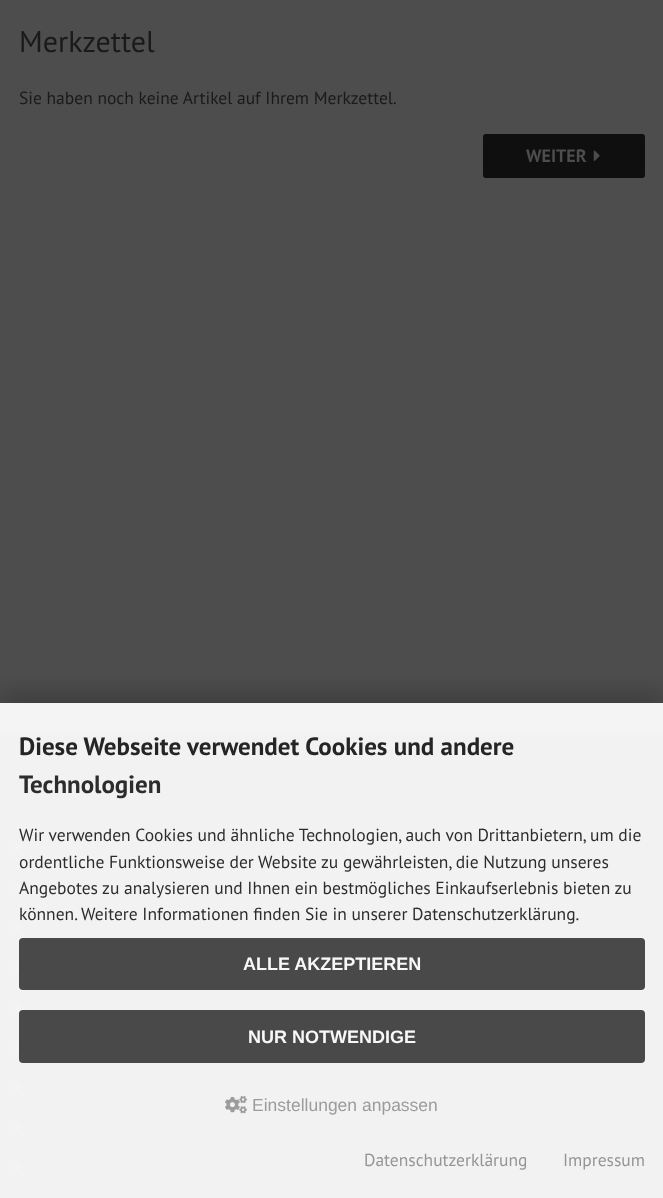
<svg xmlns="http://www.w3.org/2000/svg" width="663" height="1198">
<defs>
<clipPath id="clip1"><rect x="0" y="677" width="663" height="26"/></clipPath>
</defs>
<rect width="100%" height="100%" fill="#4d4d4d"/>
<rect y="703" width="663" height="32" fill="#f4f4f4"/>
<text x="19" y="52" style="font-family:PT Sans;font-size:30px;fill:#1a1a1a">Merkzettel</text>
<text x="19" y="104" style="font-family:PT Sans;font-size:17.5px;fill:#1a1a1a">Sie haben noch keine Artikel auf Ihrem Merkzettel.</text>
<rect x="483.5" y="134.5" width="161" height="43" rx="2" fill="#0f0f0f" stroke="#0f0f0f"/>
<text x="526" y="162" style="font-family:PT Sans;font-size:18px;font-weight:bold;fill:#4d4d4d">WEITER</text>
<image x="593" y="150" width="7" height="11" href="media/1.png"/>
<rect y="735" width="663" height="463" fill="#f2f2f2"/>
<image x="13" y="841" width="8" height="12" href="media/2.png"/>
<image x="13" y="881" width="8" height="12" href="media/2.png"/>
<image x="13" y="921" width="8" height="12" href="media/2.png"/>
<image x="13" y="961" width="6" height="12" href="media/3.png"/>
<image x="13" y="1001" width="8" height="12" href="media/2.png"/>
<image x="13" y="1041" width="6" height="12" href="media/3.png"/>
<image x="13" y="1081" width="8" height="12" href="media/2.png"/>
<image x="13" y="1121" width="8" height="12" href="media/2.png"/>
<image x="13" y="1161" width="8" height="12" href="media/2.png"/>
<image x="346" y="841" width="7" height="12" href="media/4.png"/>
<g clip-path="url(#clip1)">
<rect y="693" width="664" height="496" fill="#02020233" filter="blur(12.5px)"/>
</g>
<text x="19" y="755" style="font-family:PT Sans;font-size:25px;font-weight:bold;fill:#252525">Diese Webseite verwendet Cookies und andere</text>
<text x="19" y="793" style="font-family:PT Sans;font-size:25px;font-weight:bold;fill:#2c2c2c">Technologien</text>
<text x="19" y="841" style="font-family:PT Sans;font-size:17.5px;fill:#2c2c2c">Wir verwenden Cookies und ähnliche Technologien, auch von Drittanbietern, um die</text>
<text x="19" y="868" style="font-family:PT Sans;font-size:17.5px;fill:#2c2c2c">ordentliche Funktionsweise der Website zu gewährleisten, die Nutzung unseres</text>
<text x="19" y="894" style="font-family:PT Sans;font-size:17.5px;fill:#2c2c2c">Angebotes zu analysieren und Ihnen ein bestmögliches Einkaufserlebnis bieten zu</text>
<text x="19" y="920" style="font-family:PT Sans;font-size:17.5px;fill:#2c2c2c">können. Weitere Informationen finden Sie in unserer Datenschutzerklärung.</text>
<rect x="19" y="938" width="626" height="52" rx="4" fill="#494949"/>
<text x="243" y="970" style="font-family:Liberation Sans;font-size:18px;font-weight:bold;fill:#f8f8f8">ALLE AKZEPTIEREN</text>
<rect x="19" y="1010" width="626" height="53" rx="4" fill="#494949"/>
<text x="248" y="1043" style="font-family:Liberation Sans;font-size:18px;font-weight:bold;fill:#f8f8f8">NUR NOTWENDIGE</text>
<image x="225" y="1096" width="22" height="18" href="media/5.png"/>
<text x="252" y="1111" style="font-family:Liberation Sans;font-size:17.5px;fill:#9c9c9c">Einstellungen anpassen</text>
<text x="364" y="1166" style="font-family:PT Sans;font-size:17.5px;fill:#959595">Datenschutzerklärung</text>
<text x="563" y="1166" style="font-family:PT Sans;font-size:17.5px;fill:#959595">Impressum</text>
</svg>
